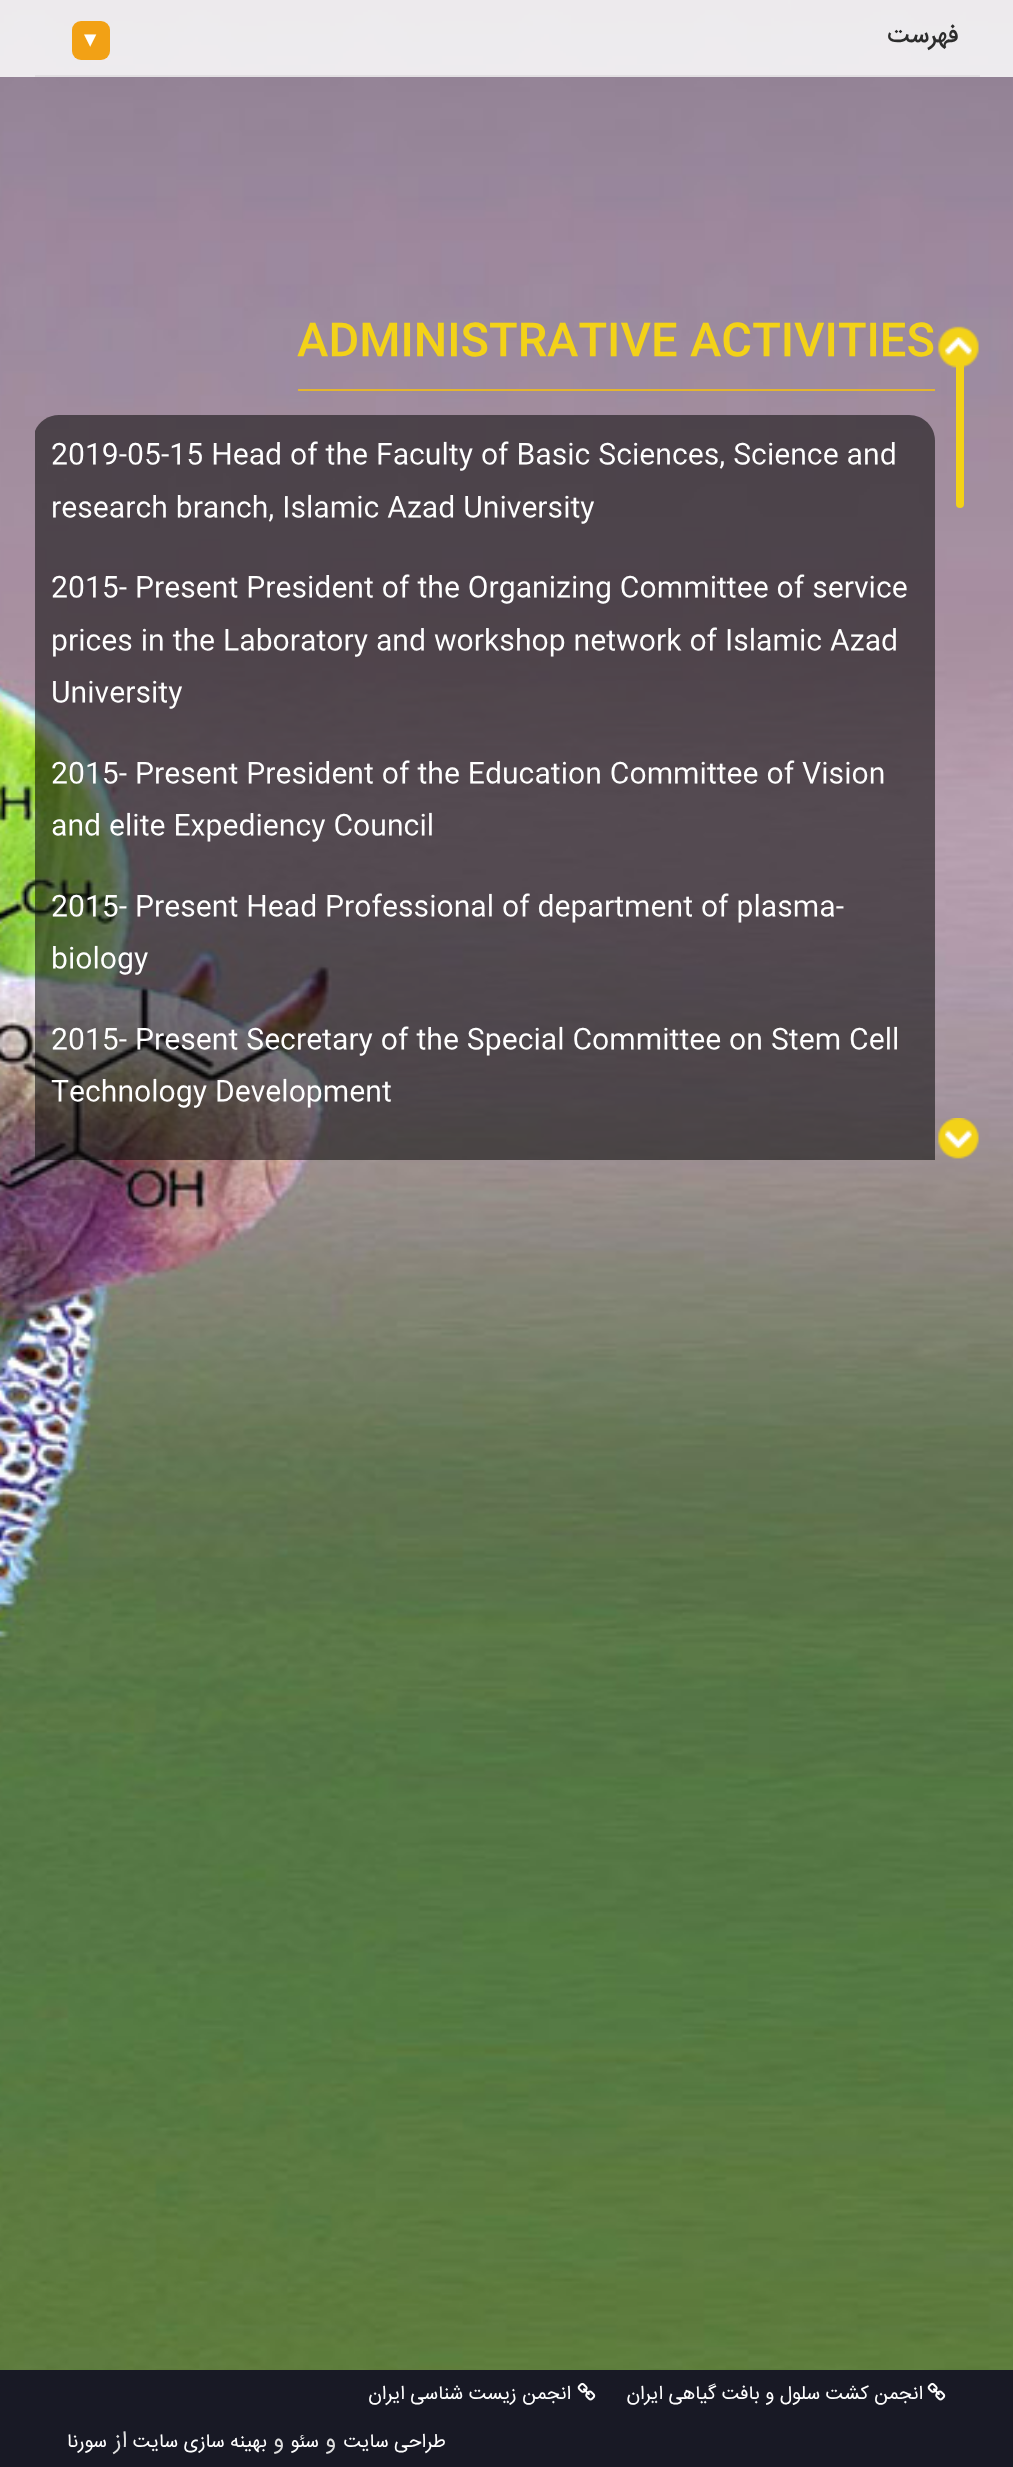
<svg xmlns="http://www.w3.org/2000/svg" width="1013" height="2467">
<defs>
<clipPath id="clip1"><rect x="35" y="320" width="945" height="840"/></clipPath>
</defs>
<rect width="100%" height="100%" fill="#fff"/>
<image x="0" y="0" width="1013" height="2370" href="media/1.png"/>
<rect width="1013" height="77" fill="#ffffff99"/>
<rect width="1013" height="77" fill="#ffffff99"/>
<rect x="35" y="75" width="945" height="2" fill="#e2dfe2"/>
<rect x="72" y="21" width="38" height="39" rx="9" fill="#f2a115"/>
<text x="84" y="47" style="font-family:DejaVu Sans;font-size:24.5px;fill:#fff">▾</text>
<text x="958" y="42" style="font-family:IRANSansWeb;font-size:24.5px;font-weight:500;direction:rtl;fill:#2c2c2c">فهرست</text>
<rect x="298" y="389" width="637" height="2" fill="#e4b52f"/>
<text x="297" y="354" style="font-family:IRANSansWeb;font-size:43.75px;font-weight:500;fill:#f3d218">ADMINISTRATIVE ACTIVITIES</text>
<g clip-path="url(#clip1)">
<path d="M59 415h850c14.5 0 26 11.5 26 26v719h-902v-719c0-14.5 11.5-26 26-26z" fill="#0a0a0a91"/>
</g>
<text x="51" y="463" style="font-family:IRANSansWeb;font-size:28px;fill:#fff">2019-05-15 Head of the Faculty of Basic Sciences, Science and</text>
<text x="51" y="516" style="font-family:IRANSansWeb;font-size:28px;fill:#fff">research branch, Islamic Azad University</text>
<text x="51" y="596" style="font-family:IRANSansWeb;font-size:28px;fill:#fff">2015- Present President of the Organizing Committee of service</text>
<text x="51" y="649" style="font-family:IRANSansWeb;font-size:28px;fill:#fff">prices in the Laboratory and workshop network of Islamic Azad</text>
<text x="51" y="701" style="font-family:IRANSansWeb;font-size:28px;fill:#fff">University</text>
<text x="51" y="782" style="font-family:IRANSansWeb;font-size:28px;fill:#fff">2015- Present President of the Education Committee of Vision</text>
<text x="51" y="834" style="font-family:IRANSansWeb;font-size:28px;fill:#fff">and elite Expediency Council</text>
<text x="51" y="915" style="font-family:IRANSansWeb;font-size:28px;fill:#fff">2015- Present Head Professional of department of plasma-</text>
<text x="51" y="967" style="font-family:IRANSansWeb;font-size:28px;fill:#fff">biology</text>
<text x="51" y="1048" style="font-family:IRANSansWeb;font-size:28px;fill:#fff">2015- Present Secretary of the Special Committee on Stem Cell</text>
<text x="51" y="1100" style="font-family:IRANSansWeb;font-size:28px;fill:#fff">Technology Development</text>
<rect x="956" y="329" width="8" height="179" rx="4" fill="#f3d218"/>
<image x="937" y="326" width="42" height="42" href="media/2.png"/>
<image x="937" y="1118" width="42" height="41" href="media/3.png"/>
<rect y="2370" width="1013" height="97" fill="#181925"/>
<text x="571" y="2399" style="font-family:IRANSansWeb;font-size:19.25px;direction:rtl;fill:#fff">انجمن زیست شناسی ایران</text>
<image x="577" y="2382" width="19" height="19" href="media/4.png"/>
<text x="923" y="2399" style="font-family:IRANSansWeb;font-size:19.25px;direction:rtl;fill:#fff">انجمن کشت سلول و بافت گیاهی ایران</text>
<image x="927" y="2382" width="19" height="19" href="media/4.png"/>
<text x="107" y="2447" style="font-family:IRANSansWeb;font-size:19.25px;direction:rtl;fill:#fff">سورنا</text>
<text x="127" y="2447" style="font-family:IRANSansWeb;font-size:23px;direction:rtl;fill:#dedede">از</text>
<text x="267" y="2447" style="font-family:IRANSansWeb;font-size:19.25px;direction:rtl;fill:#fff">بهینه سازی سایت</text>
<text x="284" y="2447" style="font-family:IRANSansWeb;font-size:23px;direction:rtl;fill:#dedede">و</text>
<text x="319" y="2447" style="font-family:IRANSansWeb;font-size:19.25px;direction:rtl;fill:#fff">سئو</text>
<text x="336" y="2447" style="font-family:IRANSansWeb;font-size:23px;direction:rtl;fill:#dedede">و</text>
<text x="446" y="2447" style="font-family:IRANSansWeb;font-size:19.25px;direction:rtl;fill:#fff">طراحی سایت</text>
</svg>
